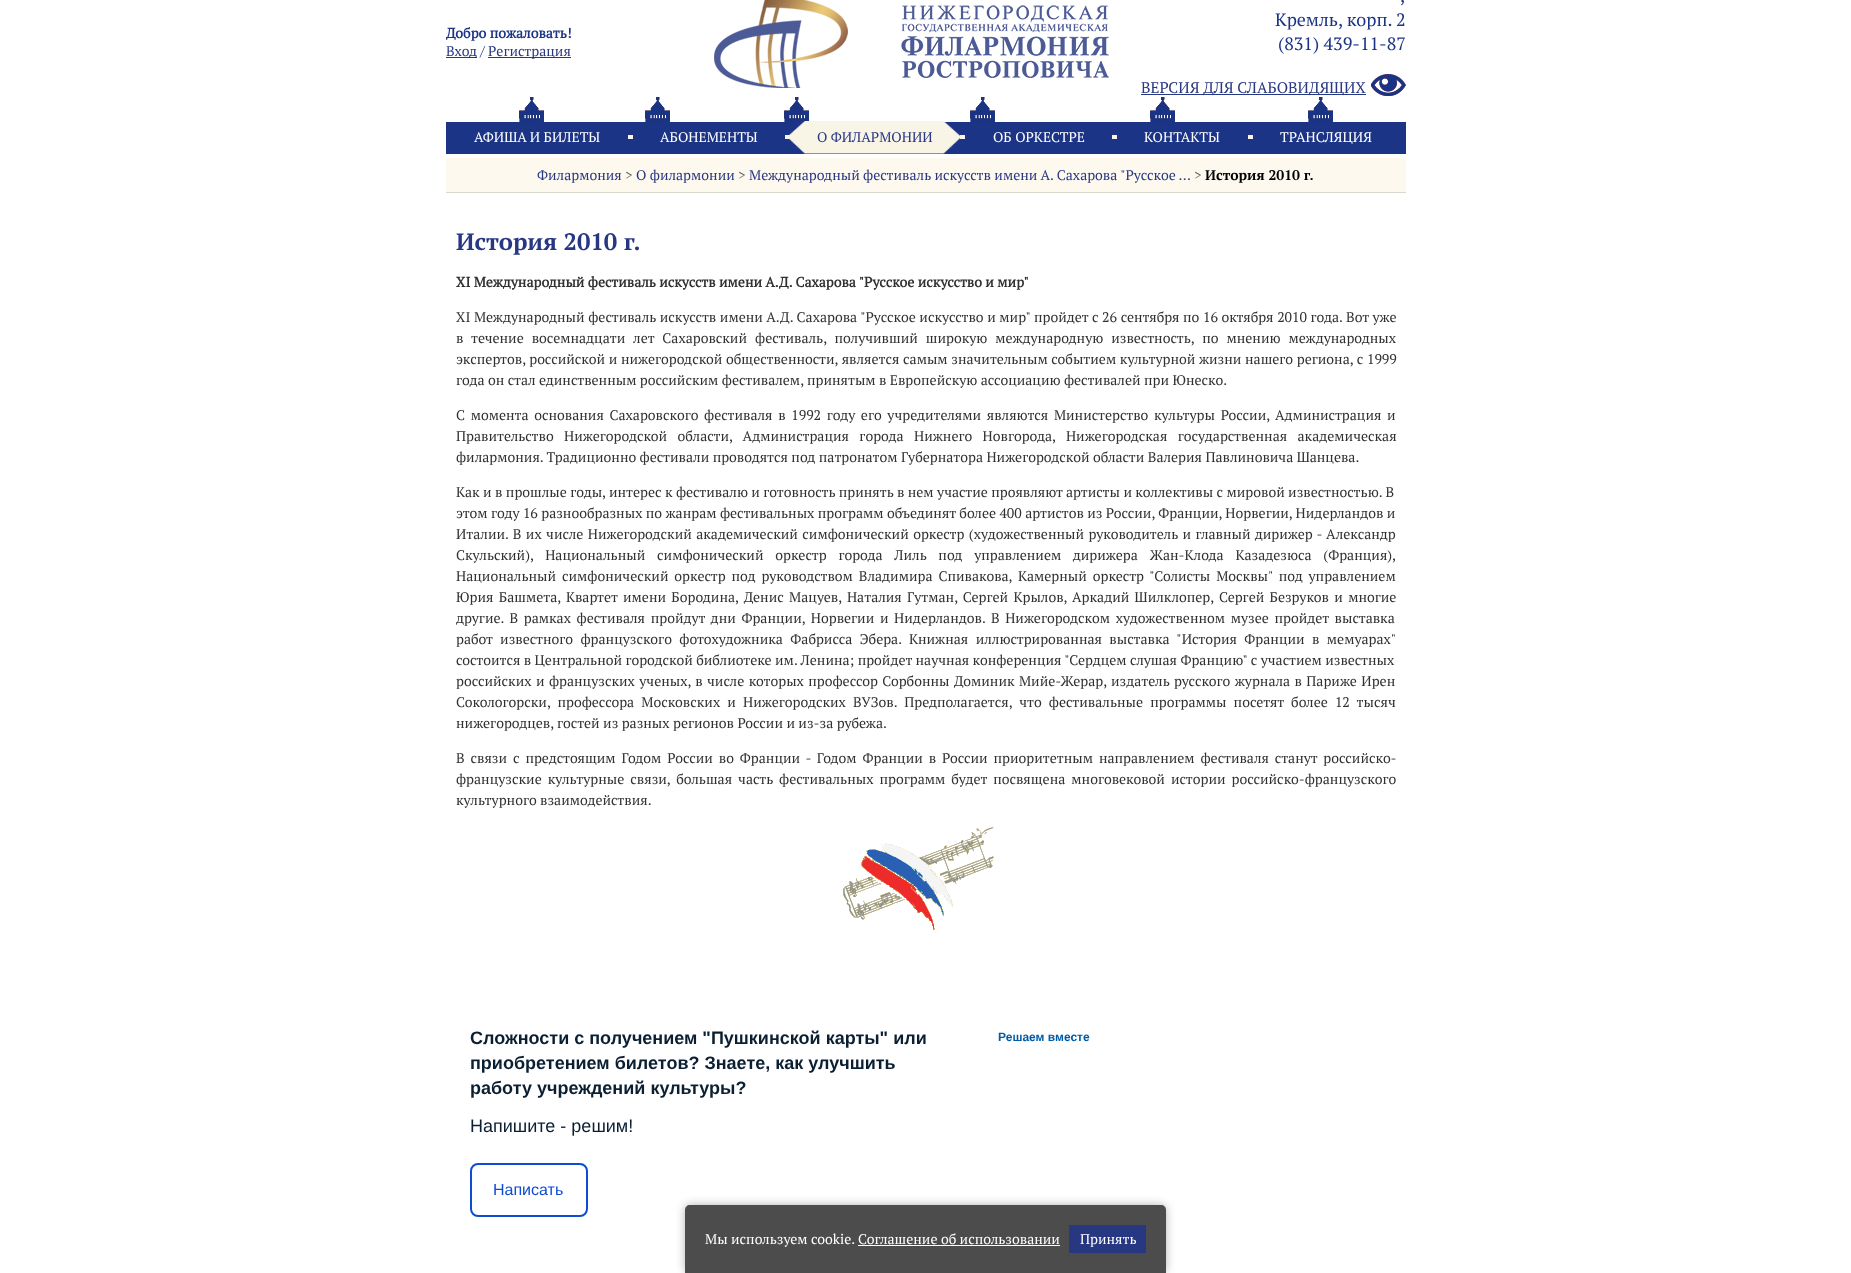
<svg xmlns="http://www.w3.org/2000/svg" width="1851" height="1273">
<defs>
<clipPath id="clip1"><path d="M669 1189h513v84h-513zm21 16h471c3 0 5 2 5 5v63h-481v-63c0-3 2-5 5-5z" clip-rule="evenodd"/></clipPath>
</defs>
<rect width="100%" height="100%" fill="#fff"/>
<text x="446" y="38" style="font-family:'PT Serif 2';font-size:14px;font-weight:bold;fill:#1b3486">Добро пожаловать!</text>
<rect x="446" y="57" width="31" height="1" fill="#283782"/>
<text x="446" y="56" style="font-family:PT Serif;font-size:14px;fill:#283782">Вход</text>
<text x="480" y="56" style="font-family:PT Serif;font-size:14px;fill:#1b3486">/</text>
<rect x="488" y="57" width="83" height="1" fill="#283782"/>
<text x="488" y="56" style="font-family:PT Serif;font-size:14px;fill:#283782">Pегистрация</text>
<image x="714" y="0" width="395" height="88" href="media/1.png"/>
<text x="1400" y="2" style="font-family:PT Serif;font-size:18px;fill:#1b3486">,</text>
<text x="1275" y="26" style="font-family:PT Serif;font-size:18px;fill:#1b3486">Кремль, корп. 2</text>
<text x="1278" y="50" style="font-family:PT Serif;font-size:18px;fill:#1b3486">(831) 439-11-87</text>
<rect x="1141" y="94" width="225" height="1" fill="#283782"/>
<text x="1141" y="93" style="font-family:PT Serif;font-size:15.4px;fill:#283782">ВЕРСИЯ ДЛЯ СЛАБОВИДЯЩИХ</text>
<image x="1371" y="74" width="35" height="22" href="media/2.png"/>
<image x="519" y="97" width="814" height="25" href="media/3.png"/>
<rect x="446" y="122" width="960" height="32" fill="#1b3486"/>
<text x="474" y="142" style="font-family:PT Serif;font-size:14px;fill:#fff">АФИША И БИЛЕТЫ</text>
<rect x="628" y="135" width="5" height="4" fill="#f8f5e7"/>
<text x="660" y="142" style="font-family:PT Serif;font-size:14px;fill:#fff">АБОНЕМЕНТЫ</text>
<rect x="785" y="135" width="5" height="4" fill="#f8f5e7"/>
<image x="789" y="121" width="171" height="33" href="media/4.png"/>
<text x="817" y="142" style="font-family:PT Serif;font-size:14px;fill:#283782">О ФИЛАРМОНИИ</text>
<rect x="960" y="135" width="5" height="4" fill="#f8f5e7"/>
<text x="993" y="142" style="font-family:PT Serif;font-size:14px;fill:#fff">OБ ОРКЕСТРЕ</text>
<rect x="1112" y="135" width="5" height="4" fill="#f8f5e7"/>
<text x="1144" y="142" style="font-family:PT Serif;font-size:14px;fill:#fff">КОНТАКТЫ</text>
<rect x="1248" y="135" width="5" height="4" fill="#f8f5e7"/>
<text x="1280" y="142" style="font-family:PT Serif;font-size:14px;fill:#fff">ТРАНСЛЯЦИЯ</text>
<rect x="446" y="158" width="960" height="34" fill="#fdf9ef"/>
<rect x="446" y="192" width="960" height="1" fill="#dad7d1"/>
<text x="537" y="180" style="font-family:PT Serif;font-size:14px;fill:#283782">Филармония</text>
<text x="625" y="180" style="font-family:PT Serif;font-size:14px;fill:#676662">&gt;</text>
<text x="636" y="180" style="font-family:PT Serif;font-size:14px;fill:#283782">О филармонии</text>
<text x="738" y="180" style="font-family:PT Serif;font-size:14px;fill:#676662">&gt;</text>
<text x="749" y="180" style="font-family:PT Serif;font-size:14px;fill:#283782">Международный фестиваль искусств имени А. Сахарова "Русское ...</text>
<text x="1194" y="180" style="font-family:PT Serif;font-size:14px;fill:#676662">&gt;</text>
<text x="1205" y="180" style="font-family:PT Serif;font-size:14px;font-weight:bold;fill:#010101">История 2010 г.</text>
<text x="456" y="250" style="font-family:PT Serif;font-size:23.75px;font-weight:bold;fill:#283782">История 2010 г.</text>
<text x="456" y="287" style="font-family:'PT Serif 2';font-size:14px;font-weight:bold;fill:#323132">XI Международный фестиваль искусств имени А.Д. Сахарова "Русское искусство и мир"</text>
<text x="456" y="322" word-spacing="0.2" style="font-family:PT Serif;font-size:14px;fill:#323132">XI Международный фестиваль искусств имени А.Д. Сахарова "Русское искусство и мир" пройдет с 26 сентября по 16 октября 2010 года. Вот уже</text>
<text x="456" y="343" word-spacing="4.6" style="font-family:PT Serif;font-size:14px;fill:#323132">в течение восемнадцати лет Сахаровский фестиваль, получивший широкую международную известность, по мнению международных</text>
<text x="456" y="364" word-spacing="0.25" style="font-family:PT Serif;font-size:14px;fill:#323132">экспертов, российской и нижегородской общественности, является самым значительным событием культурной жизни нашего региона, с 1999</text>
<text x="456" y="385" style="font-family:PT Serif;font-size:14px;fill:#323132">года он стал единственным российским фестивалем, принятым в Европейскую ассоциацию фестивалей при Юнеско.</text>
<text x="456" y="420" word-spacing="2.25" style="font-family:PT Serif;font-size:14px;fill:#323132">С момента основания Сахаровского фестиваля в 1992 году его учредителями являются Министерство культуры России, Администрация и</text>
<text x="456" y="441" word-spacing="7" style="font-family:PT Serif;font-size:14px;fill:#323132">Правительство Нижегородской области, Администрация города Нижнего Новгорода, Нижегородская государственная академическая</text>
<text x="456" y="462" style="font-family:PT Serif;font-size:14px;fill:#323132">филармония. Традиционно фестивали проводятся под патронатом Губернатора Нижегородской области Валерия Павлиновича Шанцева.</text>
<text x="456" y="497" style="font-family:PT Serif;font-size:14px;fill:#323132">Как и в прошлые годы, интерес к фестивалю и готовность принять в нем участие проявляют артисты и коллективы с мировой известностью. В</text>
<text x="456" y="518" style="font-family:PT Serif;font-size:14px;fill:#323132">этом году 16 разнообразных по жанрам фестивальных программ объединят более 400 артистов из России, Франции, Норвегии, Нидерландов и</text>
<text x="456" y="539" word-spacing="1" style="font-family:PT Serif;font-size:14px;fill:#323132">Италии. В их числе Нижегородский академический симфонический оркестр (художественный руководитель и главный дирижер - Александр</text>
<text x="456" y="560" word-spacing="8.4" style="font-family:PT Serif;font-size:14px;fill:#323132">Скульский), Национальный симфонический оркестр города Лиль под управлением дирижера Жан-Клода Казадезюса (Франция),</text>
<text x="456" y="581" word-spacing="2.5" style="font-family:PT Serif;font-size:14px;fill:#323132">Национальный симфонический оркестр под руководством Владимира Спивакова, Камерный оркестр "Солисты Москвы" под управлением</text>
<text x="456" y="602" word-spacing="1.9" style="font-family:PT Serif;font-size:14px;fill:#323132">Юрия Башмета, Квартет имени Бородина, Денис Мацуев, Наталия Гутман, Сергей Крылов, Аркадий Шилклопер, Сергей Безруков и многие</text>
<text x="456" y="623" word-spacing="2.25" style="font-family:PT Serif;font-size:14px;fill:#323132">другие. В рамках фестиваля пройдут дни Франции, Норвегии и Нидерландов. В Нижегородском художественном музее пройдет выставка</text>
<text x="456" y="644" word-spacing="4" style="font-family:PT Serif;font-size:14px;fill:#323132">работ известного французского фотохудожника Фабрисса Эбера. Книжная иллюстрированная выставка "История Франции в мемуарах"</text>
<text x="456" y="665" style="font-family:PT Serif;font-size:14px;fill:#323132">состоится в Центральной городской библиотеке им. Ленина; пройдет научная конференция "Сердцем слушая Францию" с участием известных</text>
<text x="456" y="686" word-spacing="1" style="font-family:PT Serif;font-size:14px;fill:#323132">российских и французских ученых, в числе которых профессор Сорбонны Доминик Мийе-Жерар, издатель русского журнала в Париже Ирен</text>
<text x="456" y="707" word-spacing="3.75" style="font-family:PT Serif;font-size:14px;fill:#323132">Сокологорски, профессора Московских и Нижегородских ВУЗов. Предполагается, что фестивальные программы посетят более 12 тысяч</text>
<text x="456" y="728" style="font-family:PT Serif;font-size:14px;fill:#323132">нижегородцев, гостей из разных регионов России и из-за рубежа.</text>
<text x="456" y="763" word-spacing="2.5" style="font-family:PT Serif;font-size:14px;fill:#323132">В связи с предстоящим Годом России во Франции - Годом Франции в России приоритетным направлением фестиваля станут российско-</text>
<text x="456" y="784" word-spacing="2.6" style="font-family:PT Serif;font-size:14px;fill:#323132">французские культурные связи, большая часть фестивальных программ будет посвящена многовековой истории российско-французского</text>
<text x="456" y="805" style="font-family:PT Serif;font-size:14px;fill:#323132">культурного взаимодействия.</text>
<image x="843" y="827" width="151" height="103" href="media/5.png"/>
<text x="470" y="1044" style="font-family:Liberation Sans;font-size:18px;font-weight:bold;fill:#0b1f33">Сложности с получением "Пушкинской карты" или</text>
<text x="470" y="1069" style="font-family:Liberation Sans;font-size:18px;font-weight:bold;fill:#0b1f33">приобретением билетов? Знаете, как улучшить</text>
<text x="470" y="1094" style="font-family:Liberation Sans;font-size:18px;font-weight:bold;fill:#0b1f33">работу учреждений культуры?</text>
<text x="470" y="1132" style="font-family:Liberation Sans;font-size:18px;fill:#0b1f33">Напишите - решим!</text>
<rect x="471" y="1164" width="116" height="52" rx="7" fill="none" stroke="#0d4cd3" stroke-width="2"/>
<text x="493" y="1195" style="font-family:Liberation Sans;font-size:16px;fill:#0d4cd3">Написать</text>
<text x="998" y="1041" style="font-family:Liberation Sans;font-size:12px;font-weight:bold;fill:#005ca9">Решаем вместе</text>
<g clip-path="url(#clip1)">
<rect x="685" y="1205" width="481" height="68" rx="5" fill="#0000004d" filter="blur(5px)"/>
</g>
<path d="M690 1205h471c3 0 5 2 5 5v63h-481v-63c0-3 2-5 5-5z" fill="#000000b3"/>
<text x="705" y="1244" style="font-family:PT Serif;font-size:14px;fill:#fff">Мы используем cookie. Соглашение об использовании</text>
<rect x="858" y="1245" width="202" height="1" fill="#fff"/>
<rect x="1069" y="1225" width="77" height="28" fill="#283782"/>
<text x="1080" y="1244" style="font-family:PT Serif;font-size:14px;fill:#fff">Принять</text>
</svg>
